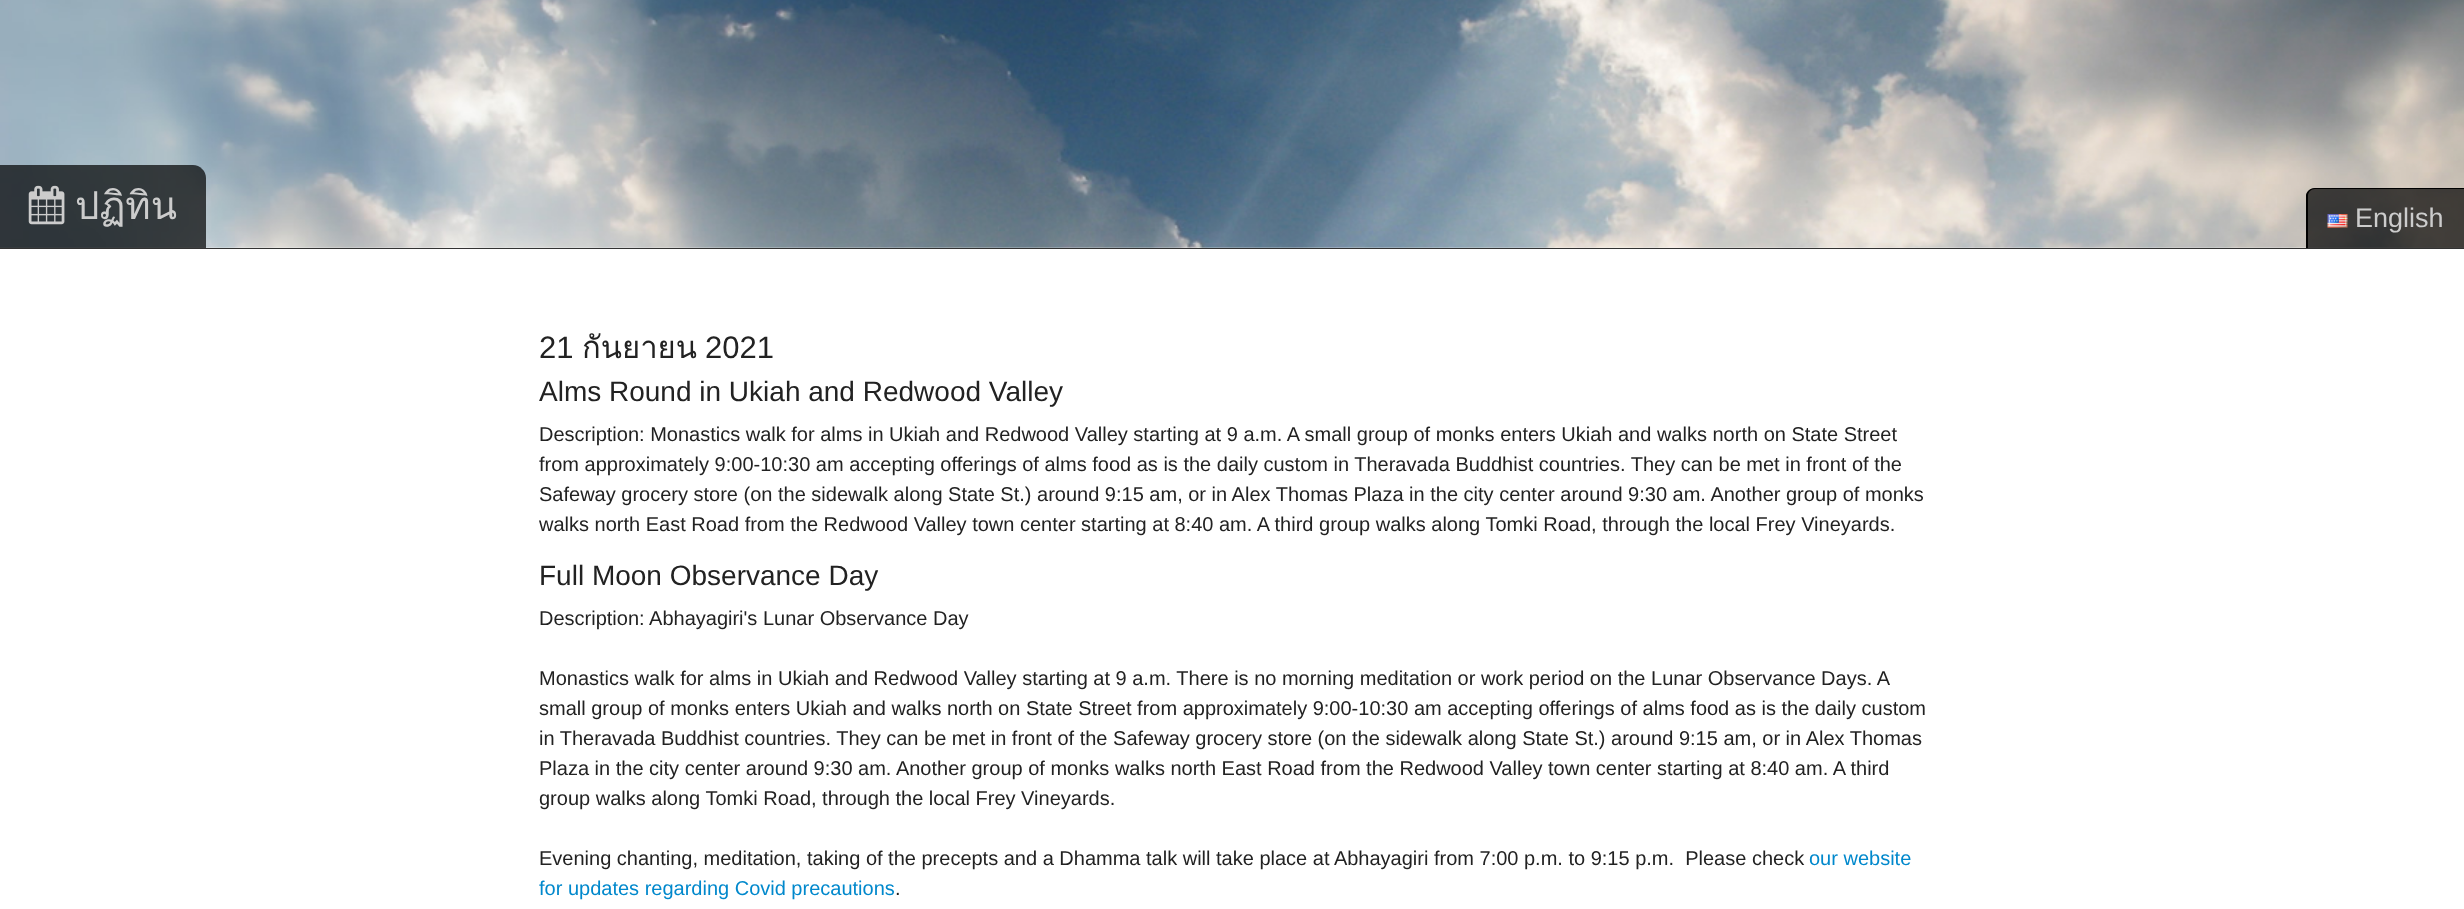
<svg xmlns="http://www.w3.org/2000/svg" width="2464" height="909">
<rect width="100%" height="100%" fill="#fff"/>
<rect y="248" width="2464" height="1" fill="#333"/>
<image x="0" y="0" width="2464" height="248" href="media/1.png"/>
<path d="M0 165h193c7 0 13 6 13 13v70h-206z" fill="#000000b3"/>
<image x="28" y="185" width="37" height="40" href="media/2.png"/>
<text x="75" y="219" style="font-family:Loma;font-size:38.5px;fill:#ccc">ปฏิทิน</text>
<path d="M2315 188h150v60h-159v-51c0-5 4-9 9-9z" fill="#000000b3"/>
<path d="M2315 188h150v60h-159v-52c0-4 4-8 9-8zm0 1h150v59h-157v-52c0-4 3-7 7-7z" fill="#000" fill-rule="evenodd"/>
<image x="2327" y="214" width="21" height="14" href="media/3.png"/>
<text x="2355" y="227" style="font-family:Liberation Sans;font-size:27px;fill:#ccc">English</text>
<text x="539" y="358" style="font-family:Liberation Sans;font-size:31px;fill:#222">21</text>
<text x="582" y="358" style="font-family:Loma;font-size:31px;fill:#222">กันยายน</text>
<text x="705" y="358" style="font-family:Liberation Sans;font-size:31px;fill:#222">2021</text>
<text x="539" y="401" style="font-family:Liberation Sans;font-size:28px;fill:#222">Alms Round in Ukiah and Redwood Valley</text>
<text x="539" y="441" style="font-family:Liberation Sans;font-size:20px;fill:#222">Description: Monastics walk for alms in Ukiah and Redwood Valley starting at 9 a.m. A small group of monks enters Ukiah and walks north on State Street</text>
<text x="539" y="471" style="font-family:Liberation Sans;font-size:20px;fill:#222">from approximately 9:00-10:30 am accepting offerings of alms food as is the daily custom in Theravada Buddhist countries. They can be met in front of the</text>
<text x="539" y="501" style="font-family:Liberation Sans;font-size:20px;fill:#222">Safeway grocery store (on the sidewalk along State St.) around 9:15 am, or in Alex Thomas Plaza in the city center around 9:30 am. Another group of monks</text>
<text x="539" y="531" style="font-family:Liberation Sans;font-size:20px;fill:#222">walks north East Road from the Redwood Valley town center starting at 8:40 am. A third group walks along Tomki Road, through the local Frey Vineyards.</text>
<text x="539" y="585" style="font-family:Liberation Sans;font-size:28px;fill:#222">Full Moon Observance Day</text>
<text x="539" y="625" style="font-family:Liberation Sans;font-size:20px;fill:#222">Description: Abhayagiri's Lunar Observance Day</text>
<text x="539" y="685" style="font-family:Liberation Sans;font-size:20px;fill:#222">Monastics walk for alms in Ukiah and Redwood Valley starting at 9 a.m. There is no morning meditation or work period on the Lunar Observance Days. A</text>
<text x="539" y="715" style="font-family:Liberation Sans;font-size:20px;fill:#222">small group of monks enters Ukiah and walks north on State Street from approximately 9:00-10:30 am accepting offerings of alms food as is the daily custom</text>
<text x="539" y="745" style="font-family:Liberation Sans;font-size:20px;fill:#222">in Theravada Buddhist countries. They can be met in front of the Safeway grocery store (on the sidewalk along State St.) around 9:15 am, or in Alex Thomas</text>
<text x="539" y="775" style="font-family:Liberation Sans;font-size:20px;fill:#222">Plaza in the city center around 9:30 am. Another group of monks walks north East Road from the Redwood Valley town center starting at 8:40 am. A third</text>
<text x="539" y="805" style="font-family:Liberation Sans;font-size:20px;fill:#222">group walks along Tomki Road, through the local Frey Vineyards.</text>
<text x="539" y="865" style="font-family:Liberation Sans;font-size:20px;fill:#222" xml:space="preserve">Evening chanting, meditation, taking of the precepts and a Dhamma talk will take place at Abhayagiri from 7:00 p.m. to 9:15 p.m.  Please check</text>
<text x="1809" y="865" style="font-family:Liberation Sans;font-size:20px;fill:#08c">our website</text>
<text x="539" y="895" style="font-family:Liberation Sans;font-size:20px;fill:#08c">for updates regarding Covid precautions</text>
<text x="895" y="895" style="font-family:Liberation Sans;font-size:20px;fill:#222">.</text>
</svg>
